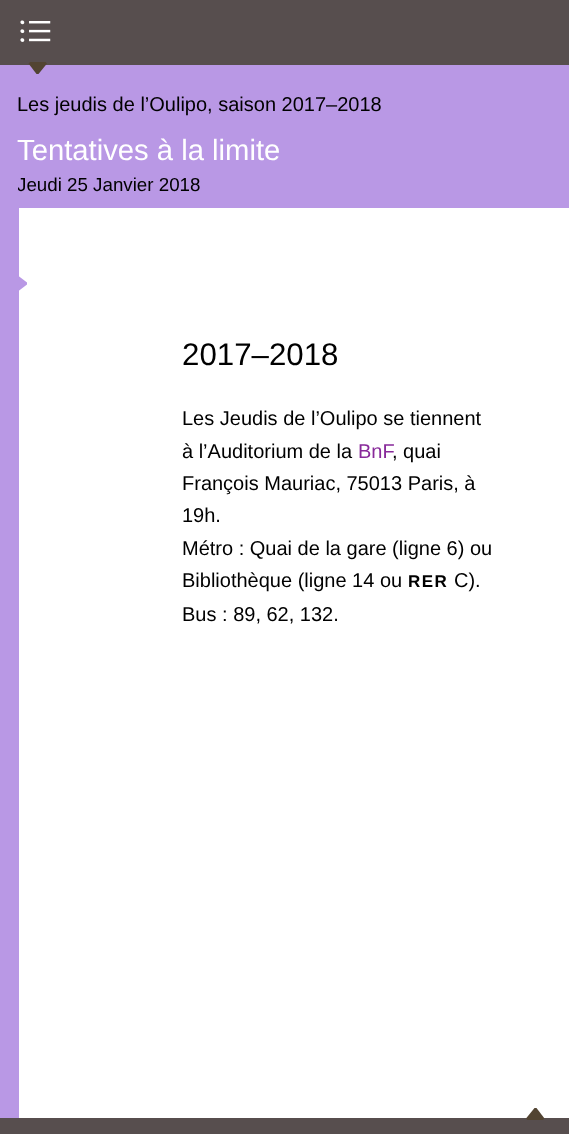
<svg xmlns="http://www.w3.org/2000/svg" width="569" height="1134">
<defs>
<clipPath id="clip1"><rect x="18" y="170" width="525" height="30"/></clipPath>
</defs>
<rect width="100%" height="100%" fill="#fff"/>
<rect width="569" height="65" fill="#574e4e"/>
<image x="20" y="20" width="31" height="22" href="media/1.png"/>
<rect y="65" width="569" height="143" fill="#b998e5"/>
<path d="M36.5 74l-8-10.5l1.5-1.5h15.5l1.5 1.5l-8.5 10.5z" fill="#524432"/>
<text x="17" y="111" style="font-family:Liberation Sans;font-size:20px;fill:#000">Les jeudis de l’Oulipo, saison 2017–2018</text>
<text x="17" y="160" style="font-family:Liberation Sans;font-size:29.25px;fill:#fff">Tentatives à la limite</text>
<g clip-path="url(#clip1)">
<text x="17" y="191" style="font-family:Liberation Sans;font-size:18.75px;fill:#000">Jeudi 25 Janvier 2018</text>
</g>
<rect y="208" width="19" height="910" fill="#b998e5"/>
<path d="M27 284.5l-10.5 8l-1.5-1v-16l1.5-1l10.5 8z" fill="#b998e5"/>
<text x="182" y="365" style="font-family:Liberation Sans;font-size:31.25px;fill:#000">2017–2018</text>
<text x="182" y="425" style="font-family:Liberation Sans;font-size:20px;fill:#000">Les Jeudis de l’Oulipo se tiennent</text>
<text x="182" y="458" style="font-family:Liberation Sans;font-size:20px;fill:#000">à l’Auditorium de la</text>
<text x="358" y="458" style="font-family:Liberation Sans;font-size:20px;fill:#882a9a">BnF</text>
<text x="392" y="458" style="font-family:Liberation Sans;font-size:20px;fill:#000">, quai</text>
<text x="182" y="490" style="font-family:Liberation Sans;font-size:20px;fill:#000">François Mauriac, 75013 Paris, à</text>
<text x="182" y="522" style="font-family:Liberation Sans;font-size:20px;fill:#000">19h.</text>
<text x="182" y="555" style="font-family:Liberation Sans;font-size:20px;fill:#000">Métro : Quai de la gare (ligne 6) ou</text>
<text x="182" y="587" style="font-family:Liberation Sans;font-size:20px;fill:#000">Bibliothèque (ligne 14 ou</text>
<text x="408" y="587" style="font-family:Liberation Sans;font-size:17px;font-weight:bold;letter-spacing:1.5px;fill:#000">RER</text>
<text x="454" y="587" style="font-family:Liberation Sans;font-size:20px;fill:#000">C).</text>
<text x="182" y="621" style="font-family:Liberation Sans;font-size:20px;fill:#000">Bus : 89, 62, 132.</text>
<rect y="1118" width="569" height="16" fill="#574e4e"/>
<path d="M536.5 1108l8 10.5l-1.5 1.5h-15.5l-1.5-1.5l8.5-10.5z" fill="#524432"/>
</svg>
